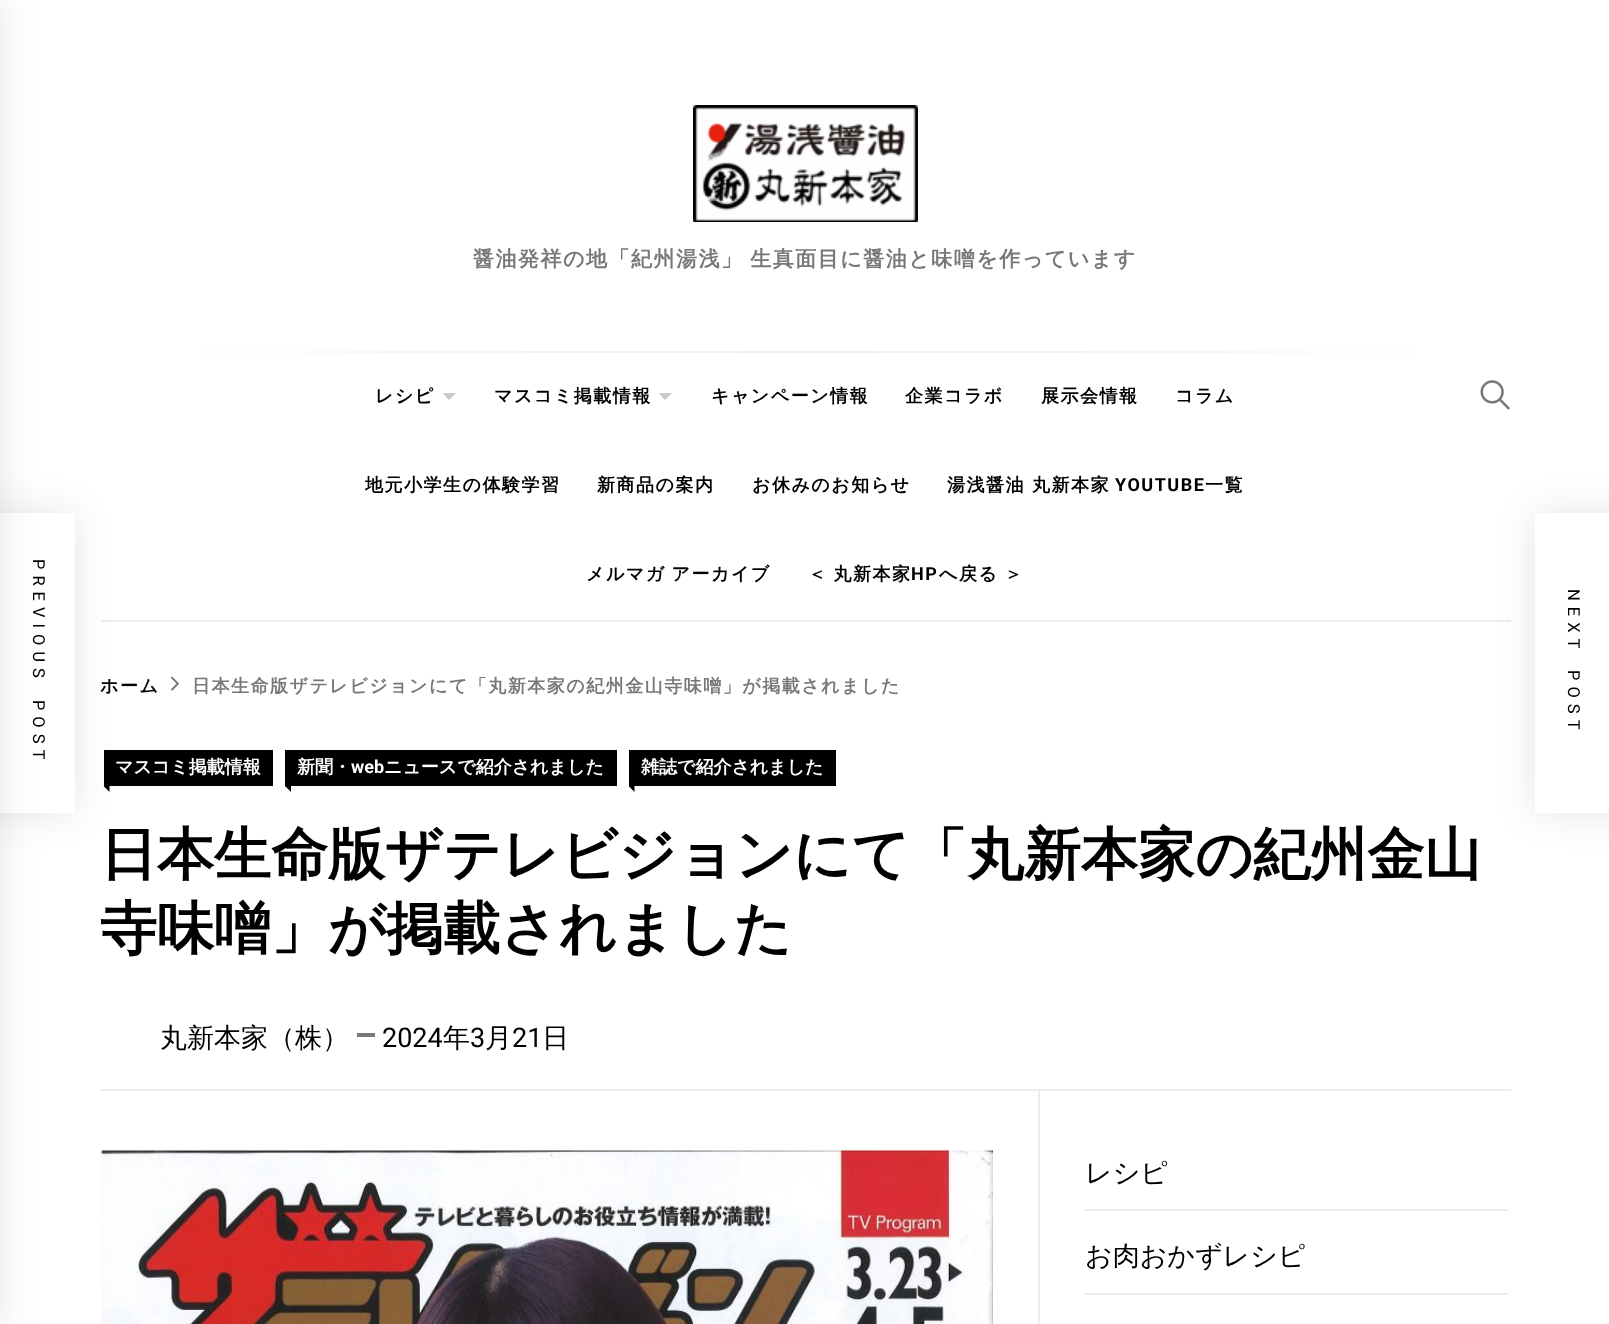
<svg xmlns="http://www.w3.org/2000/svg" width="1609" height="1324">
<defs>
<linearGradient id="g1" gradientUnits="userSpaceOnUse" x1="1511" y1="352" x2="101" y2="352"><stop offset="0" stop-color="#fff"/><stop offset="0.5" stop-color="#ededed"/><stop offset="1" stop-color="#fff"/></linearGradient>
</defs>
<rect width="100%" height="100%" fill="#fff"/>
<rect x="101" y="620" width="1410" height="2" fill="#ededed"/>
<rect x="104" y="750" width="169" height="36" fill="#000"/>
<path d="M109.5 786v6l-6-6z" fill="#000"/>
<rect x="-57" y="513" width="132" height="300" fill="#0000001a" filter="blur(19px)"/>
<rect y="513" width="75" height="300" fill="#fff"/>
<rect x="-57" width="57" height="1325" fill="#0000001a" filter="blur(19px)"/>
<image x="693" y="105" width="225" height="117" href="media/1.png"/>
<text x="473" y="266" word-spacing="-1" style="font-family:WenQuanYi Zen Hei;font-size:21px;font-weight:bold;letter-spacing:1.5px;fill:#787878">醤油発祥の地「紀州湯浅」 生真面目に醤油と味噌を作っています</text>
<rect x="199" y="351" width="1214" height="2" fill="url(#g1)"/>
<text x="375" y="402" style="font-family:WenQuanYi Zen Hei;font-size:18px;font-weight:bold;letter-spacing:1.5px;fill:#000">レシピ</text>
<path d="M442.5 393h13.5l-7 7z" fill="#cacaca"/>
<text x="494" y="402" style="font-family:WenQuanYi Zen Hei;font-size:18px;font-weight:bold;letter-spacing:1.5px;fill:#000">マスコミ掲載情報</text>
<path d="M658.5 393h13.5l-7 7z" fill="#cacaca"/>
<text x="711" y="402" style="font-family:WenQuanYi Zen Hei;font-size:18px;font-weight:bold;letter-spacing:1.5px;fill:#000">キャンペーン情報</text>
<text x="905" y="402" style="font-family:WenQuanYi Zen Hei;font-size:18px;font-weight:bold;letter-spacing:1.5px;fill:#000">企業コラボ</text>
<text x="1041" y="402" style="font-family:WenQuanYi Zen Hei;font-size:18px;font-weight:bold;letter-spacing:1.5px;fill:#000">展示会情報</text>
<text x="1175" y="402" style="font-family:WenQuanYi Zen Hei;font-size:18px;font-weight:bold;letter-spacing:1.5px;fill:#000">コラム</text>
<text x="365" y="491" style="font-family:WenQuanYi Zen Hei;font-size:18px;font-weight:bold;letter-spacing:1.5px;fill:#000">地元小学生の体験学習</text>
<text x="597" y="491" style="font-family:WenQuanYi Zen Hei;font-size:18px;font-weight:bold;letter-spacing:1.5px;fill:#000">新商品の案内</text>
<text x="752" y="491" style="font-family:WenQuanYi Zen Hei;font-size:18px;font-weight:bold;letter-spacing:1.5px;fill:#000">お休みのお知らせ</text>
<text x="947" y="491" style="font-family:WenQuanYi Zen Hei;font-size:18px;font-weight:bold;letter-spacing:1.5px;fill:#000">湯浅醤油 丸新本家</text>
<text x="1115" y="491" style="font-family:Roboto;font-size:18px;font-weight:bold;letter-spacing:1.5px;fill:#000">YOUTUBE</text>
<text x="1205" y="491" style="font-family:WenQuanYi Zen Hei;font-size:18px;font-weight:bold;letter-spacing:1.5px;fill:#000">一覧</text>
<text x="586" y="580" word-spacing="-1" style="font-family:WenQuanYi Zen Hei;font-size:18px;font-weight:bold;letter-spacing:1.5px;fill:#000">メルマガ アーカイブ</text>
<text x="808" y="580" word-spacing="-1" style="font-family:WenQuanYi Zen Hei;font-size:18px;font-weight:bold;letter-spacing:1.5px;fill:#000">＜ 丸新本家</text>
<text x="911" y="580" style="font-family:Roboto;font-size:18px;font-weight:bold;letter-spacing:1.5px;fill:#000">HP</text>
<text x="939" y="580" word-spacing="-1" style="font-family:WenQuanYi Zen Hei;font-size:18px;font-weight:bold;letter-spacing:1.5px;fill:#000">へ戻る ＞</text>
<image x="1480" y="380" width="30" height="30" href="media/2.png"/>
<rect x="1038" y="1091" width="2" height="233" fill="#ededed"/>
<text x="33" y="559" transform="rotate(90 33 559)" word-spacing="6" style="font-family:Roboto;font-size:16.5px;letter-spacing:6px;fill:#000">PREVIOUS POST</text>
<rect x="1535" y="513" width="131" height="300" fill="#0000001a" filter="blur(19px)"/>
<rect x="1535" y="513" width="74" height="300" fill="#fff"/>
<text x="1568" y="589" transform="rotate(90 1568 589)" word-spacing="6" style="font-family:Roboto;font-size:16.5px;letter-spacing:6px;fill:#000">NEXT POST</text>
<image x="100" y="1150" width="893" height="174" href="media/3.png"/>
<rect x="1085" y="1209" width="424" height="2" fill="#ededed"/>
<text x="1085" y="1182" style="font-family:WenQuanYi Zen Hei;font-size:27px;font-weight:500;fill:#000">レシピ</text>
<rect x="1085" y="1293" width="424" height="2" fill="#ededed"/>
<text x="1085" y="1265" style="font-family:WenQuanYi Zen Hei;font-size:27px;font-weight:500;fill:#000">お肉おかずレシピ</text>
<text x="100" y="692" style="font-family:WenQuanYi Zen Hei;font-size:18px;font-weight:bold;letter-spacing:1.5px;fill:#000">ホーム</text>
<image x="171" y="676" width="8" height="15" href="media/4.png"/>
<text x="192" y="692" style="font-family:WenQuanYi Zen Hei;font-size:18px;font-weight:bold;letter-spacing:1.5px;fill:#787878">日本生命版ザテレビジョンにて「丸新本家の紀州金山寺味噌」が掲載されました</text>
<rect x="101" y="1089" width="1410" height="2" fill="#ededed"/>
<text x="115" y="773" style="font-family:WenQuanYi Zen Hei;font-size:18px;font-weight:bold;fill:#fff">マスコミ掲載情報</text>
<rect x="285" y="750" width="332" height="36" fill="#000"/>
<text x="297" y="773" style="font-family:WenQuanYi Zen Hei;font-size:18px;font-weight:bold;fill:#fff">新聞・</text>
<text x="351" y="773" style="font-family:Roboto;font-size:18px;font-weight:bold;fill:#fff">web</text>
<text x="384" y="773" style="font-family:WenQuanYi Zen Hei;font-size:18px;font-weight:bold;fill:#fff">ニュースで紹介されました</text>
<path d="M291 786v6l-6-6z" fill="#000"/>
<rect x="629" y="750" width="207" height="36" fill="#000"/>
<text x="641" y="773" style="font-family:WenQuanYi Zen Hei;font-size:18px;font-weight:bold;fill:#fff">雑誌で紹介されました</text>
<path d="M634.5 786v6l-6-6z" fill="#000"/>
<text x="100" y="874" style="font-family:WenQuanYi Zen Hei;font-size:57px;font-weight:bold;fill:#000">日本生命版ザテレビジョンにて「丸新本家の紀州金山</text>
<text x="100" y="948" style="font-family:WenQuanYi Zen Hei;font-size:57px;font-weight:bold;fill:#000">寺味噌」が掲載されました</text>
<text x="160" y="1047" style="font-family:WenQuanYi Zen Hei;font-size:27px;font-weight:500;fill:#000">丸新本家（株）</text>
<rect x="357" y="1033" width="18" height="4" fill="#787878"/>
<text x="382" y="1047" style="font-family:Roboto;font-size:27px;fill:#000">2024</text>
<text x="443" y="1047" style="font-family:WenQuanYi Zen Hei;font-size:27px;font-weight:500;fill:#000">年</text>
<text x="470" y="1047" style="font-family:Roboto;font-size:27px;fill:#000">3</text>
<text x="485" y="1047" style="font-family:WenQuanYi Zen Hei;font-size:27px;font-weight:500;fill:#000">月</text>
<text x="512" y="1047" style="font-family:Roboto;font-size:27px;fill:#000">21</text>
<text x="542" y="1047" style="font-family:WenQuanYi Zen Hei;font-size:27px;font-weight:500;fill:#000">日</text>
</svg>
